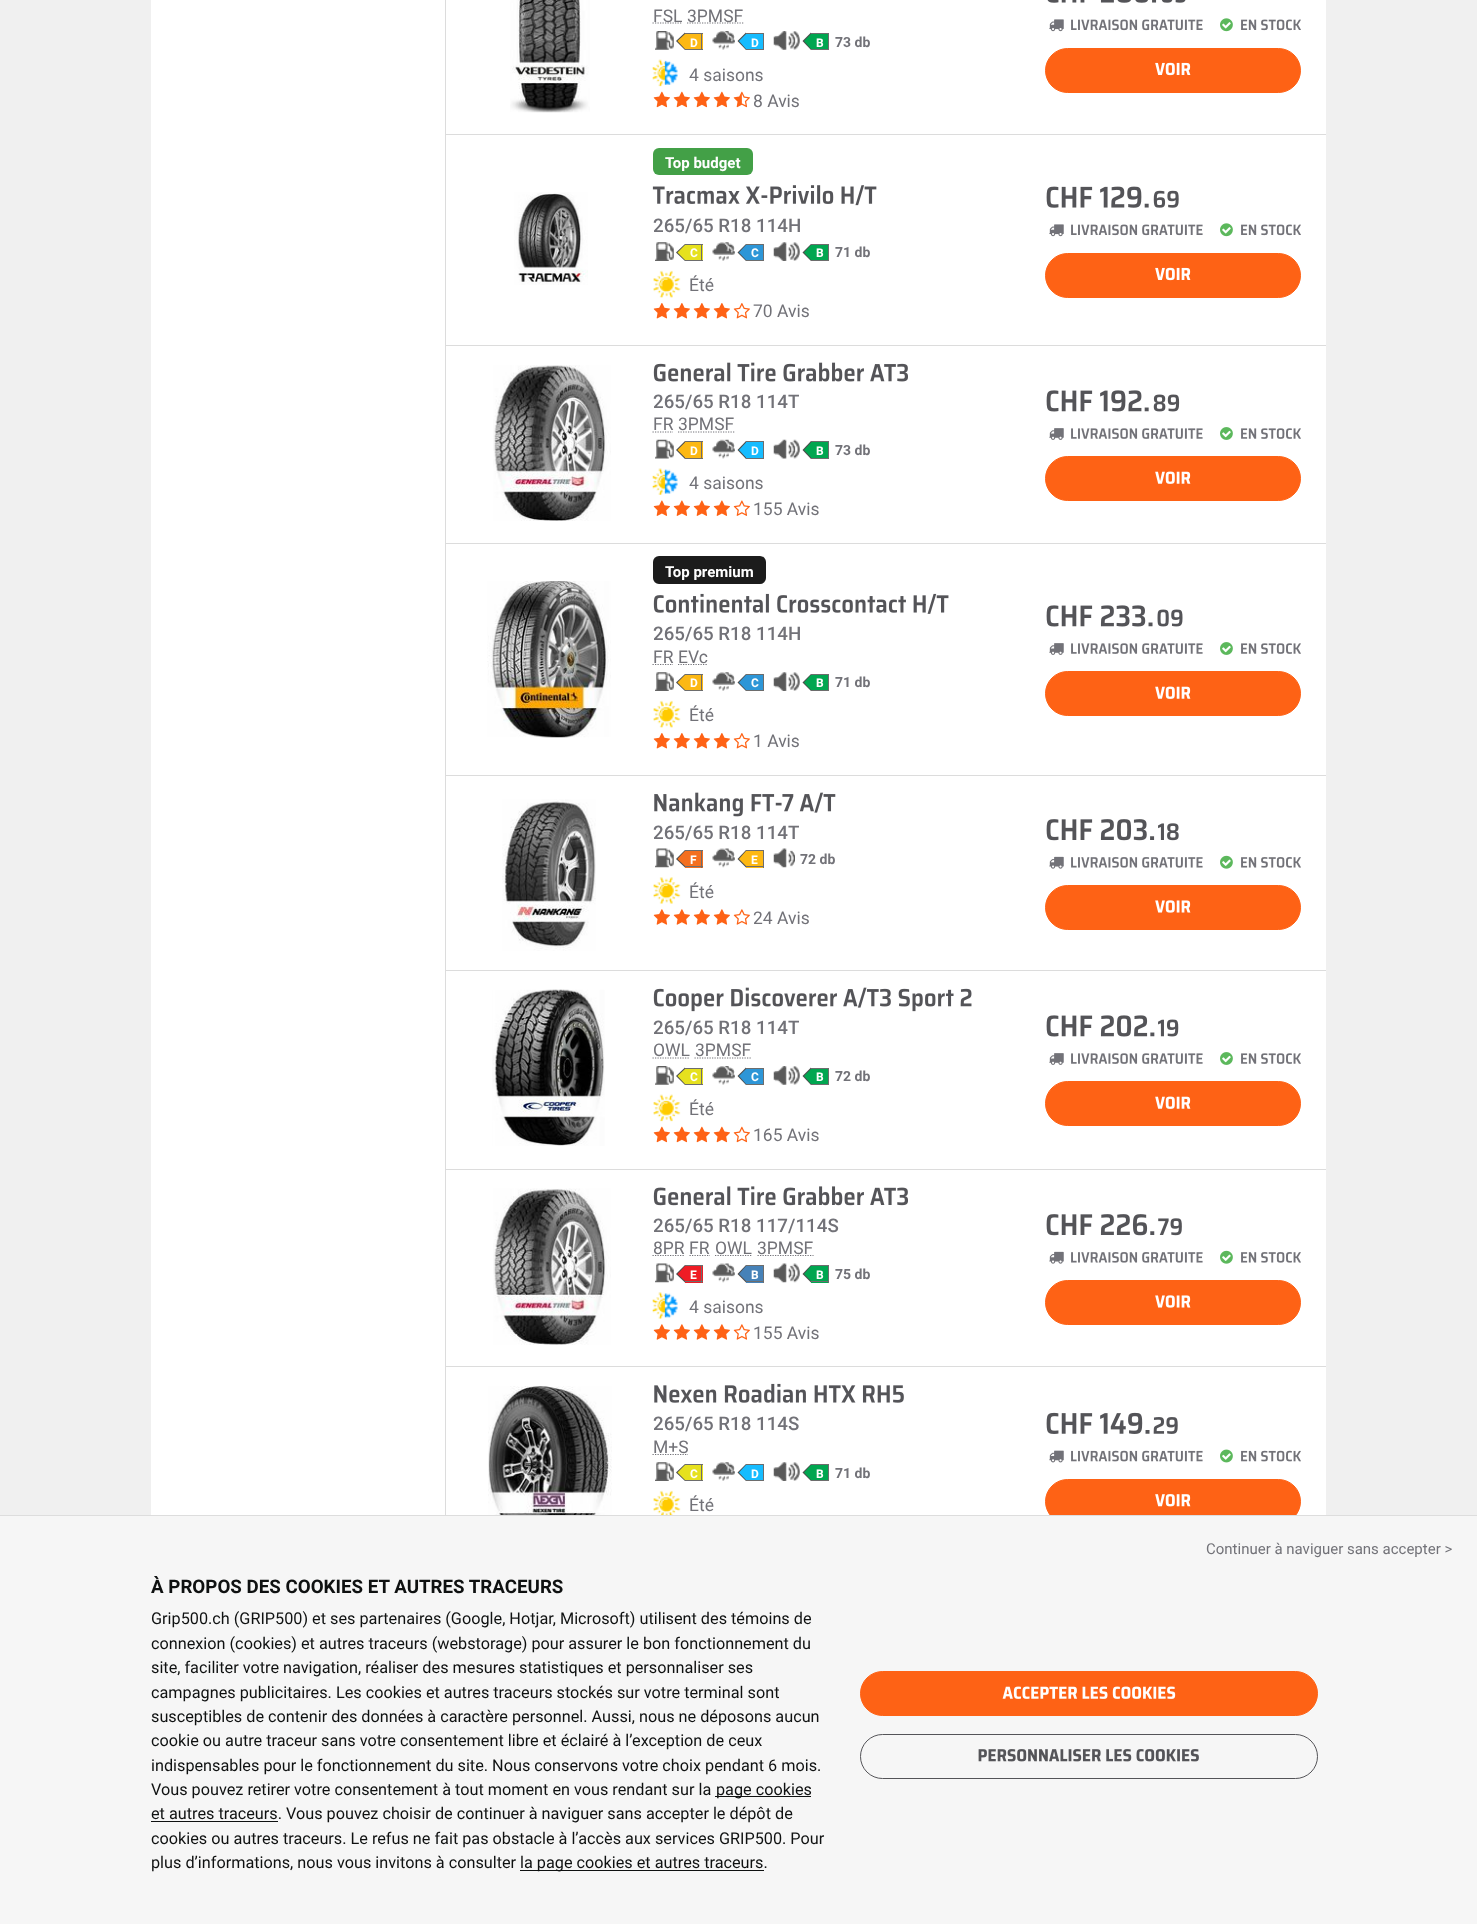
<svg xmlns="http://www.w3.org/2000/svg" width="1477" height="1924">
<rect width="100%" height="100%" fill="#f0f0f0"/>
<rect x="151" width="1175" height="1515" fill="#fff"/>
<rect x="445" width="1" height="1515" fill="#dcdcdc"/>
<rect x="446" y="134" width="880" height="1" fill="#dcdcdc"/>
<image x="510" y="0" width="80" height="113" href="media/1.png"/>
<path d="M652.5 23h29.5" fill="none" stroke="#727278" stroke-width="1.2" stroke-dasharray="1.25 1.25"/>
<text x="653" y="22" style="font-family:Roboto;font-size:17.5px;fill:#727278">FSL</text>
<path d="M687 23h56.5" fill="none" stroke="#727278" stroke-width="1.2" stroke-dasharray="1.25 1.25"/>
<text x="687" y="22" style="font-family:Roboto;font-size:17.5px;fill:#727278">3PMSF</text>
<image x="655" y="31" width="19" height="19" href="media/2.png"/>
<rect x="685" y="34" width="18" height="15" fill="#fcb814"/>
<rect x="685" y="33" width="18" height="1" fill="#6d6d6d"/>
<rect x="701" y="33" width="1" height="17" fill="#6d6d6d"/>
<rect x="685" y="49" width="18" height="1" fill="#6d6d6d"/>
<path d="M685 32.5v17.5l-9-9z" fill="#4c4c4c"/>
<path d="M685 34v15l-7.5-8z" fill="#fcb814"/>
<text x="690" y="47" style="font-family:Roboto;font-size:12px;font-weight:bold;fill:#fff">D</text>
<image x="712" y="31" width="23" height="19" href="media/3.png"/>
<rect x="746" y="34" width="17" height="15" fill="#16bcff"/>
<rect x="746" y="33" width="18" height="1" fill="#6d6d6d"/>
<rect x="763" y="33" width="1" height="17" fill="#6d6d6d"/>
<rect x="746" y="49" width="18" height="1" fill="#6d6d6d"/>
<path d="M746 32.5v17.5l-8.5-9z" fill="#4c4c4c"/>
<path d="M746 34v15l-7-8z" fill="#16bcff"/>
<text x="751" y="47" style="font-family:Roboto;font-size:12px;font-weight:bold;fill:#fff">D</text>
<image x="773" y="31" width="27" height="19" href="media/4.png"/>
<rect x="811" y="34" width="17" height="15" fill="#00a650"/>
<rect x="811" y="33" width="18" height="1" fill="#6d6d6d"/>
<rect x="828" y="33" width="1" height="17" fill="#6d6d6d"/>
<rect x="811" y="49" width="18" height="1" fill="#6d6d6d"/>
<path d="M811 32.5v17.5l-8.5-9z" fill="#4c4c4c"/>
<path d="M811 34v15l-7-8z" fill="#00a650"/>
<text x="816" y="47" style="font-family:Roboto;font-size:12px;font-weight:bold;fill:#fff">B</text>
<text x="835" y="47" style="font-family:Roboto;font-size:14px;font-weight:bold;fill:#727278">73 db</text>
<image x="652" y="59" width="26" height="28" href="media/5.png"/>
<text x="689" y="81" style="font-family:Roboto;font-size:17.5px;fill:#727278">4 saisons</text>
<image x="653" y="91" width="17" height="17" href="media/6.png"/>
<image x="673" y="91" width="17" height="17" href="media/6.png"/>
<image x="693" y="91" width="17" height="17" href="media/6.png"/>
<image x="713" y="91" width="17" height="17" href="media/6.png"/>
<image x="733" y="91" width="17" height="17" href="media/7.png"/>
<text x="753" y="107" style="font-family:Roboto;font-size:17.5px;fill:#727278">8 Avis</text>
<image x="1047" y="0" width="110" height="3" href="media/8.png"/>
<image x="1161" y="0" width="25" height="3" href="media/9.png"/>
<image x="1049" y="19" width="15" height="13" href="media/10.png"/>
<image x="1071" y="19" width="132" height="12" href="media/11.png"/>
<image x="1220" y="18" width="13" height="14" href="media/12.png"/>
<image x="1241" y="19" width="60" height="12" href="media/13.png"/>
<rect x="1045.5" y="48.5" width="255" height="44" rx="22" fill="#fe6215" stroke="#fe6215"/>
<image x="1155" y="62" width="36" height="14" href="media/14.png"/>
<rect x="446" y="345" width="880" height="1" fill="#dcdcdc"/>
<image x="514" y="192" width="74" height="93" href="media/15.png"/>
<rect x="653" y="148" width="100" height="27" rx="6" fill="#43a047"/>
<text x="665" y="168" style="font-family:Roboto;font-size:15px;font-weight:bold;fill:#fff">Top budget</text>
<image x="652" y="185" width="225" height="21" href="media/16.png"/>
<text x="653" y="232" style="font-family:Roboto;font-size:18.75px;font-weight:500;fill:#727278">265/65 R18 114H</text>
<image x="655" y="242" width="19" height="19" href="media/17.png"/>
<rect x="685" y="245" width="18" height="15" fill="#e6e11e"/>
<rect x="685" y="244" width="18" height="1" fill="#6d6d6d"/>
<rect x="701" y="244" width="1" height="17" fill="#6d6d6d"/>
<rect x="685" y="260" width="18" height="1" fill="#6d6d6d"/>
<path d="M685 244v17l-9-8.5z" fill="#4c4c4c"/>
<path d="M685 245v15l-7.5-7.5z" fill="#e6e11e"/>
<text x="690" y="257" style="font-family:Roboto;font-size:12px;font-weight:bold;fill:#fff">C</text>
<image x="712" y="242" width="23" height="19" href="media/18.png"/>
<rect x="746" y="245" width="17" height="15" fill="#2d96d7"/>
<rect x="746" y="244" width="18" height="1" fill="#6d6d6d"/>
<rect x="763" y="244" width="1" height="17" fill="#6d6d6d"/>
<rect x="746" y="260" width="18" height="1" fill="#6d6d6d"/>
<path d="M746 244v17l-8.5-8.5z" fill="#4c4c4c"/>
<path d="M746 245v15l-7-7.5z" fill="#2d96d7"/>
<text x="751" y="257" style="font-family:Roboto;font-size:12px;font-weight:bold;fill:#fff">C</text>
<image x="773" y="242" width="27" height="19" href="media/19.png"/>
<rect x="811" y="245" width="17" height="15" fill="#00a650"/>
<rect x="811" y="244" width="18" height="1" fill="#6d6d6d"/>
<rect x="828" y="244" width="1" height="17" fill="#6d6d6d"/>
<rect x="811" y="260" width="18" height="1" fill="#6d6d6d"/>
<path d="M811 244v17l-8.5-8.5z" fill="#4c4c4c"/>
<path d="M811 245v15l-7-7.5z" fill="#00a650"/>
<text x="816" y="257" style="font-family:Roboto;font-size:12px;font-weight:bold;fill:#fff">B</text>
<text x="835" y="257" style="font-family:Roboto;font-size:14px;font-weight:bold;fill:#727278">71 db</text>
<image x="653" y="270" width="28" height="28" href="media/20.png"/>
<text x="689" y="291" style="font-family:Roboto;font-size:17.5px;fill:#727278">Été</text>
<image x="653" y="303" width="17" height="16" href="media/21.png"/>
<image x="673" y="303" width="17" height="16" href="media/21.png"/>
<image x="693" y="303" width="17" height="16" href="media/21.png"/>
<image x="713" y="303" width="17" height="16" href="media/21.png"/>
<image x="733" y="303" width="17" height="16" href="media/22.png"/>
<text x="753" y="317" style="font-family:Roboto;font-size:17.5px;fill:#727278">70 Avis</text>
<image x="1046" y="186" width="103" height="22" href="media/23.png"/>
<image x="1153" y="190" width="26" height="18" href="media/24.png"/>
<image x="1049" y="224" width="15" height="13" href="media/10.png"/>
<image x="1071" y="224" width="132" height="12" href="media/11.png"/>
<image x="1220" y="223" width="13" height="14" href="media/12.png"/>
<image x="1241" y="224" width="60" height="12" href="media/13.png"/>
<rect x="1045.5" y="253.5" width="255" height="44" rx="22" fill="#fe6215" stroke="#fe6215"/>
<image x="1155" y="267" width="36" height="14" href="media/14.png"/>
<rect x="446" y="543" width="880" height="1" fill="#dcdcdc"/>
<image x="493" y="365" width="118" height="156" href="media/25.png"/>
<image x="653" y="362" width="255" height="20" href="media/26.png"/>
<text x="653" y="408" style="font-family:Roboto;font-size:18.75px;font-weight:500;fill:#727278">265/65 R18 114T</text>
<text x="653" y="430" style="font-family:Roboto;font-size:17.5px;fill:#727278">FR</text>
<path d="M652.5 432h20.5" fill="none" stroke="#727278" stroke-width="1.2" stroke-dasharray="1.25 1.25"/>
<text x="678" y="430" style="font-family:Roboto;font-size:17.5px;fill:#727278">3PMSF</text>
<path d="M678 432h56.5" fill="none" stroke="#727278" stroke-width="1.2" stroke-dasharray="1.25 1.25"/>
<image x="655" y="439" width="19" height="20" href="media/27.png"/>
<rect x="685" y="442" width="18" height="16" fill="#fcb814"/>
<rect x="685" y="441" width="18" height="1" fill="#6d6d6d"/>
<rect x="701" y="441" width="1" height="18" fill="#6d6d6d"/>
<rect x="685" y="458" width="18" height="1" fill="#6d6d6d"/>
<path d="M685 441v18l-9-9z" fill="#4c4c4c"/>
<path d="M685 442.5v15l-7.5-7.5z" fill="#fcb814"/>
<text x="690" y="455" style="font-family:Roboto;font-size:12px;font-weight:bold;fill:#fff">D</text>
<image x="712" y="439" width="23" height="20" href="media/28.png"/>
<rect x="746" y="442" width="17" height="16" fill="#16bcff"/>
<rect x="746" y="441" width="18" height="1" fill="#6d6d6d"/>
<rect x="763" y="441" width="1" height="18" fill="#6d6d6d"/>
<rect x="746" y="458" width="18" height="1" fill="#6d6d6d"/>
<path d="M746 441v18l-8.5-9z" fill="#4c4c4c"/>
<path d="M746 442.5v15l-7-7.5z" fill="#16bcff"/>
<text x="751" y="455" style="font-family:Roboto;font-size:12px;font-weight:bold;fill:#fff">D</text>
<image x="773" y="439" width="27" height="20" href="media/29.png"/>
<rect x="811" y="442" width="17" height="16" fill="#00a650"/>
<rect x="811" y="441" width="18" height="1" fill="#6d6d6d"/>
<rect x="828" y="441" width="1" height="18" fill="#6d6d6d"/>
<rect x="811" y="458" width="18" height="1" fill="#6d6d6d"/>
<path d="M811 441v18l-8.5-9z" fill="#4c4c4c"/>
<path d="M811 442.5v15l-7-7.5z" fill="#00a650"/>
<text x="816" y="455" style="font-family:Roboto;font-size:12px;font-weight:bold;fill:#fff">B</text>
<text x="835" y="455" style="font-family:Roboto;font-size:14px;font-weight:bold;fill:#727278">73 db</text>
<image x="652" y="468" width="26" height="27" href="media/30.png"/>
<text x="689" y="489" style="font-family:Roboto;font-size:17.5px;fill:#727278">4 saisons</text>
<image x="653" y="500" width="17" height="16" href="media/31.png"/>
<image x="673" y="500" width="17" height="16" href="media/31.png"/>
<image x="693" y="500" width="17" height="16" href="media/31.png"/>
<image x="713" y="500" width="17" height="16" href="media/31.png"/>
<image x="733" y="500" width="17" height="16" href="media/32.png"/>
<text x="753" y="515" style="font-family:Roboto;font-size:17.5px;fill:#727278">155 Avis</text>
<image x="1046" y="390" width="103" height="22" href="media/33.png"/>
<image x="1153" y="394" width="27" height="18" href="media/34.png"/>
<image x="1049" y="428" width="15" height="12" href="media/35.png"/>
<image x="1071" y="428" width="132" height="11" href="media/36.png"/>
<image x="1220" y="427" width="13" height="13" href="media/37.png"/>
<image x="1241" y="428" width="60" height="11" href="media/38.png"/>
<rect x="1045.5" y="456.5" width="255" height="44" rx="22" fill="#fe6215" stroke="#fe6215"/>
<image x="1155" y="471" width="36" height="13" href="media/39.png"/>
<rect x="446" y="775" width="880" height="1" fill="#dcdcdc"/>
<image x="487" y="581" width="124" height="157" href="media/40.png"/>
<rect x="653" y="556" width="113" height="28" rx="6" fill="#1c1c1c"/>
<text x="665" y="577" style="font-family:Roboto;font-size:15px;font-weight:bold;fill:#fff">Top premium</text>
<image x="653" y="593" width="296" height="21" href="media/41.png"/>
<text x="653" y="640" style="font-family:Roboto;font-size:18.75px;font-weight:500;fill:#727278">265/65 R18 114H</text>
<text x="653" y="663" style="font-family:Roboto;font-size:17.5px;fill:#727278">FR</text>
<path d="M652.5 664.5h20.5" fill="none" stroke="#727278" stroke-width="1.2" stroke-dasharray="1.25 1.25"/>
<path d="M678 664.5h30" fill="none" stroke="#727278" stroke-width="1.2" stroke-dasharray="1.25 1.25"/>
<text x="678" y="663" style="font-family:Roboto;font-size:17.5px;fill:#727278">EVc</text>
<image x="655" y="672" width="19" height="19" href="media/17.png"/>
<rect x="685" y="675" width="18" height="15" fill="#fcb814"/>
<rect x="685" y="674" width="18" height="1" fill="#6d6d6d"/>
<rect x="701" y="674" width="1" height="17" fill="#6d6d6d"/>
<rect x="685" y="690" width="18" height="1" fill="#6d6d6d"/>
<path d="M685 674v17l-9-8.5z" fill="#4c4c4c"/>
<path d="M685 675v15l-7.5-7.5z" fill="#fcb814"/>
<text x="690" y="687" style="font-family:Roboto;font-size:12px;font-weight:bold;fill:#fff">D</text>
<image x="712" y="672" width="23" height="19" href="media/18.png"/>
<rect x="746" y="675" width="17" height="15" fill="#2d96d7"/>
<rect x="746" y="674" width="18" height="1" fill="#6d6d6d"/>
<rect x="763" y="674" width="1" height="17" fill="#6d6d6d"/>
<rect x="746" y="690" width="18" height="1" fill="#6d6d6d"/>
<path d="M746 674v17l-8.5-8.5z" fill="#4c4c4c"/>
<path d="M746 675v15l-7-7.5z" fill="#2d96d7"/>
<text x="751" y="687" style="font-family:Roboto;font-size:12px;font-weight:bold;fill:#fff">C</text>
<image x="773" y="672" width="27" height="19" href="media/19.png"/>
<rect x="811" y="675" width="17" height="15" fill="#00a650"/>
<rect x="811" y="674" width="18" height="1" fill="#6d6d6d"/>
<rect x="828" y="674" width="1" height="17" fill="#6d6d6d"/>
<rect x="811" y="690" width="18" height="1" fill="#6d6d6d"/>
<path d="M811 674v17l-8.5-8.5z" fill="#4c4c4c"/>
<path d="M811 675v15l-7-7.5z" fill="#00a650"/>
<text x="816" y="687" style="font-family:Roboto;font-size:12px;font-weight:bold;fill:#fff">B</text>
<text x="835" y="687" style="font-family:Roboto;font-size:14px;font-weight:bold;fill:#727278">71 db</text>
<image x="653" y="700" width="28" height="28" href="media/42.png"/>
<text x="689" y="721" style="font-family:Roboto;font-size:17.5px;fill:#727278">Été</text>
<image x="653" y="733" width="17" height="16" href="media/21.png"/>
<image x="673" y="733" width="17" height="16" href="media/21.png"/>
<image x="693" y="733" width="17" height="16" href="media/21.png"/>
<image x="713" y="733" width="17" height="16" href="media/21.png"/>
<image x="733" y="733" width="17" height="16" href="media/22.png"/>
<text x="753" y="747" style="font-family:Roboto;font-size:17.5px;fill:#727278">1 Avis</text>
<image x="1046" y="605" width="107" height="22" href="media/43.png"/>
<image x="1157" y="609" width="26" height="18" href="media/44.png"/>
<image x="1049" y="643" width="15" height="12" href="media/35.png"/>
<image x="1071" y="643" width="132" height="11" href="media/36.png"/>
<image x="1220" y="642" width="13" height="13" href="media/37.png"/>
<image x="1241" y="643" width="60" height="11" href="media/38.png"/>
<rect x="1045.5" y="671.5" width="255" height="44" rx="22" fill="#fe6215" stroke="#fe6215"/>
<image x="1155" y="686" width="36" height="13" href="media/39.png"/>
<rect x="446" y="970" width="880" height="1" fill="#dcdcdc"/>
<image x="502" y="799" width="94" height="152" href="media/45.png"/>
<image x="654" y="792" width="182" height="25" href="media/46.png"/>
<text x="653" y="839" style="font-family:Roboto;font-size:18.75px;font-weight:500;fill:#727278">265/65 R18 114T</text>
<image x="655" y="848" width="19" height="20" href="media/47.png"/>
<rect x="685" y="851" width="18" height="17" fill="#f46f1f"/>
<rect x="685" y="850" width="18" height="1" fill="#6d6d6d"/>
<rect x="701" y="850" width="1" height="18" fill="#6d6d6d"/>
<rect x="685" y="866" width="18" height="1" fill="#6d6d6d"/>
<path d="M685 850v17.5l-9-8.5z" fill="#4c4c4c"/>
<path d="M685 851v15l-7.5-7z" fill="#f46f1f"/>
<text x="690" y="864" style="font-family:Roboto;font-size:12px;font-weight:bold;fill:#fff">F</text>
<image x="712" y="848" width="23" height="20" href="media/48.png"/>
<rect x="746" y="851" width="17" height="17" fill="#feb812"/>
<rect x="746" y="850" width="18" height="1" fill="#6d6d6d"/>
<rect x="763" y="850" width="1" height="18" fill="#6d6d6d"/>
<rect x="746" y="866" width="18" height="1" fill="#6d6d6d"/>
<path d="M746 850v17.5l-8.5-8.5z" fill="#4c4c4c"/>
<path d="M746 851v15l-7-7z" fill="#feb812"/>
<text x="751" y="864" style="font-family:Roboto;font-size:12px;font-weight:bold;fill:#fff">E</text>
<image x="773" y="848" width="22" height="20" href="media/49.png"/>
<text x="800" y="864" style="font-family:Roboto;font-size:14px;font-weight:bold;fill:#727278">72 db</text>
<image x="653" y="877" width="28" height="27" href="media/50.png"/>
<text x="689" y="898" style="font-family:Roboto;font-size:17.5px;fill:#727278">Été</text>
<image x="653" y="909" width="17" height="16" href="media/51.png"/>
<image x="673" y="909" width="17" height="16" href="media/51.png"/>
<image x="693" y="909" width="17" height="16" href="media/51.png"/>
<image x="713" y="909" width="17" height="16" href="media/51.png"/>
<image x="733" y="909" width="17" height="16" href="media/52.png"/>
<text x="753" y="924" style="font-family:Roboto;font-size:17.5px;fill:#727278">24 Avis</text>
<image x="1046" y="819" width="109" height="22" href="media/53.png"/>
<image x="1158" y="823" width="21" height="18" href="media/54.png"/>
<image x="1049" y="856" width="15" height="13" href="media/55.png"/>
<image x="1071" y="857" width="132" height="11" href="media/56.png"/>
<image x="1220" y="855" width="13" height="14" href="media/57.png"/>
<image x="1241" y="857" width="60" height="11" href="media/58.png"/>
<rect x="1045.5" y="885.5" width="255" height="44" rx="22" fill="#fe6215" stroke="#fe6215"/>
<image x="1155" y="900" width="36" height="13" href="media/59.png"/>
<rect x="446" y="1169" width="880" height="1" fill="#dcdcdc"/>
<image x="492" y="989" width="113" height="157" href="media/60.png"/>
<image x="653" y="987" width="319" height="25" href="media/61.png"/>
<text x="653" y="1034" style="font-family:Roboto;font-size:18.75px;font-weight:500;fill:#727278">265/65 R18 114T</text>
<text x="653" y="1056" style="font-family:Roboto;font-size:17.5px;fill:#727278">OWL</text>
<path d="M652.5 1058h37" fill="none" stroke="#727278" stroke-width="1.2" stroke-dasharray="1.25 1.25"/>
<text x="695" y="1056" style="font-family:Roboto;font-size:17.5px;fill:#727278">3PMSF</text>
<path d="M694.5 1058h56.5" fill="none" stroke="#727278" stroke-width="1.2" stroke-dasharray="1.25 1.25"/>
<image x="655" y="1066" width="19" height="19" href="media/2.png"/>
<rect x="685" y="1069" width="18" height="15" fill="#e6e11e"/>
<rect x="685" y="1068" width="18" height="1" fill="#6d6d6d"/>
<rect x="701" y="1068" width="1" height="17" fill="#6d6d6d"/>
<rect x="685" y="1084" width="18" height="1" fill="#6d6d6d"/>
<path d="M685 1067.5v17.5l-9-9z" fill="#4c4c4c"/>
<path d="M685 1069v15l-7.5-8z" fill="#e6e11e"/>
<text x="690" y="1081" style="font-family:Roboto;font-size:12px;font-weight:bold;fill:#fff">C</text>
<image x="712" y="1066" width="23" height="19" href="media/3.png"/>
<rect x="746" y="1069" width="17" height="15" fill="#2d96d7"/>
<rect x="746" y="1068" width="18" height="1" fill="#6d6d6d"/>
<rect x="763" y="1068" width="1" height="17" fill="#6d6d6d"/>
<rect x="746" y="1084" width="18" height="1" fill="#6d6d6d"/>
<path d="M746 1067.5v17.5l-8.5-9z" fill="#4c4c4c"/>
<path d="M746 1069v15l-7-8z" fill="#2d96d7"/>
<text x="751" y="1081" style="font-family:Roboto;font-size:12px;font-weight:bold;fill:#fff">C</text>
<image x="773" y="1066" width="27" height="19" href="media/4.png"/>
<rect x="811" y="1069" width="17" height="15" fill="#00a650"/>
<rect x="811" y="1068" width="18" height="1" fill="#6d6d6d"/>
<rect x="828" y="1068" width="1" height="17" fill="#6d6d6d"/>
<rect x="811" y="1084" width="18" height="1" fill="#6d6d6d"/>
<path d="M811 1067.5v17.5l-8.5-9z" fill="#4c4c4c"/>
<path d="M811 1069v15l-7-8z" fill="#00a650"/>
<text x="816" y="1081" style="font-family:Roboto;font-size:12px;font-weight:bold;fill:#fff">B</text>
<text x="835" y="1081" style="font-family:Roboto;font-size:14px;font-weight:bold;fill:#727278">72 db</text>
<image x="653" y="1094" width="28" height="28" href="media/62.png"/>
<text x="689" y="1115" style="font-family:Roboto;font-size:17.5px;fill:#727278">Été</text>
<image x="653" y="1126" width="17" height="17" href="media/6.png"/>
<image x="673" y="1126" width="17" height="17" href="media/6.png"/>
<image x="693" y="1126" width="17" height="17" href="media/6.png"/>
<image x="713" y="1126" width="17" height="17" href="media/6.png"/>
<image x="733" y="1126" width="17" height="17" href="media/63.png"/>
<text x="753" y="1141" style="font-family:Roboto;font-size:17.5px;fill:#727278">165 Avis</text>
<image x="1046" y="1015" width="109" height="22" href="media/64.png"/>
<image x="1158" y="1019" width="21" height="18" href="media/65.png"/>
<image x="1049" y="1053" width="15" height="12" href="media/35.png"/>
<image x="1071" y="1053" width="132" height="11" href="media/36.png"/>
<image x="1220" y="1052" width="13" height="13" href="media/37.png"/>
<image x="1241" y="1053" width="60" height="11" href="media/38.png"/>
<rect x="1045.5" y="1081.5" width="255" height="44" rx="22" fill="#fe6215" stroke="#fe6215"/>
<image x="1155" y="1096" width="36" height="13" href="media/39.png"/>
<rect x="446" y="1366" width="880" height="1" fill="#dcdcdc"/>
<image x="493" y="1188" width="118" height="157" href="media/66.png"/>
<image x="653" y="1186" width="255" height="20" href="media/67.png"/>
<text x="653" y="1232" style="font-family:Roboto;font-size:18.75px;font-weight:500;fill:#727278">265/65 R18 117/114S</text>
<path d="M652.5 1255.5h31.5" fill="none" stroke="#727278" stroke-width="1.2" stroke-dasharray="1.25 1.25"/>
<text x="653" y="1254" style="font-family:Roboto;font-size:17.5px;fill:#727278">8PR</text>
<text x="689" y="1254" style="font-family:Roboto;font-size:17.5px;fill:#727278">FR</text>
<path d="M689.5 1255.5h20.5" fill="none" stroke="#727278" stroke-width="1.2" stroke-dasharray="1.25 1.25"/>
<path d="M715 1255.5h37" fill="none" stroke="#727278" stroke-width="1.2" stroke-dasharray="1.25 1.25"/>
<text x="715" y="1254" style="font-family:Roboto;font-size:17.5px;fill:#727278">OWL</text>
<path d="M757.5 1255.5h56" fill="none" stroke="#727278" stroke-width="1.2" stroke-dasharray="1.25 1.25"/>
<text x="757" y="1254" style="font-family:Roboto;font-size:17.5px;fill:#727278">3PMSF</text>
<image x="655" y="1263" width="19" height="20" href="media/68.png"/>
<rect x="685" y="1266" width="18" height="17" fill="#ef1c25"/>
<rect x="685" y="1265" width="18" height="1" fill="#6d6d6d"/>
<rect x="701" y="1265" width="1" height="18" fill="#6d6d6d"/>
<rect x="685" y="1281" width="18" height="1" fill="#6d6d6d"/>
<path d="M685 1265v17.5l-9-8.5z" fill="#4c4c4c"/>
<path d="M685 1266v15l-7.5-7z" fill="#ef1c25"/>
<text x="690" y="1279" style="font-family:Roboto;font-size:12px;font-weight:bold;fill:#fff">E</text>
<image x="712" y="1263" width="23" height="20" href="media/69.png"/>
<rect x="746" y="1266" width="17" height="17" fill="#4682b8"/>
<rect x="746" y="1265" width="18" height="1" fill="#6d6d6d"/>
<rect x="763" y="1265" width="1" height="18" fill="#6d6d6d"/>
<rect x="746" y="1281" width="18" height="1" fill="#6d6d6d"/>
<path d="M746 1265v17.5l-8.5-8.5z" fill="#4c4c4c"/>
<path d="M746 1266v15l-7-7z" fill="#4682b8"/>
<text x="751" y="1279" style="font-family:Roboto;font-size:12px;font-weight:bold;fill:#fff">B</text>
<image x="773" y="1263" width="27" height="20" href="media/70.png"/>
<rect x="811" y="1266" width="17" height="17" fill="#00a650"/>
<rect x="811" y="1265" width="18" height="1" fill="#6d6d6d"/>
<rect x="828" y="1265" width="1" height="18" fill="#6d6d6d"/>
<rect x="811" y="1281" width="18" height="1" fill="#6d6d6d"/>
<path d="M811 1265v17.5l-8.5-8.5z" fill="#4c4c4c"/>
<path d="M811 1266v15l-7-7z" fill="#00a650"/>
<text x="816" y="1279" style="font-family:Roboto;font-size:12px;font-weight:bold;fill:#fff">B</text>
<text x="835" y="1279" style="font-family:Roboto;font-size:14px;font-weight:bold;fill:#727278">75 db</text>
<image x="652" y="1292" width="26" height="27" href="media/71.png"/>
<text x="689" y="1313" style="font-family:Roboto;font-size:17.5px;fill:#727278">4 saisons</text>
<image x="653" y="1324" width="17" height="16" href="media/51.png"/>
<image x="673" y="1324" width="17" height="16" href="media/51.png"/>
<image x="693" y="1324" width="17" height="16" href="media/51.png"/>
<image x="713" y="1324" width="17" height="16" href="media/51.png"/>
<image x="733" y="1324" width="17" height="16" href="media/52.png"/>
<text x="753" y="1339" style="font-family:Roboto;font-size:17.5px;fill:#727278">155 Avis</text>
<image x="1046" y="1214" width="109" height="22" href="media/72.png"/>
<image x="1158" y="1218" width="24" height="18" href="media/73.png"/>
<image x="1049" y="1251" width="15" height="13" href="media/55.png"/>
<image x="1071" y="1252" width="132" height="11" href="media/56.png"/>
<image x="1220" y="1250" width="13" height="14" href="media/57.png"/>
<image x="1241" y="1252" width="60" height="11" href="media/58.png"/>
<rect x="1045.5" y="1280.5" width="255" height="44" rx="22" fill="#fe6215" stroke="#fe6215"/>
<image x="1155" y="1295" width="36" height="13" href="media/59.png"/>
<image x="488" y="1386" width="124" height="129" href="media/74.png"/>
<image x="654" y="1383" width="250" height="20" href="media/75.png"/>
<text x="653" y="1430" style="font-family:Roboto;font-size:18.75px;font-weight:500;fill:#727278">265/65 R18 114S</text>
<path d="M652.5 1454.5h35.5" fill="none" stroke="#727278" stroke-width="1.2" stroke-dasharray="1.25 1.25"/>
<text x="653" y="1453" style="font-family:Roboto;font-size:17.5px;fill:#727278">M+S</text>
<image x="655" y="1462" width="19" height="19" href="media/17.png"/>
<rect x="685" y="1465" width="18" height="15" fill="#e6e11e"/>
<rect x="685" y="1464" width="18" height="1" fill="#6d6d6d"/>
<rect x="701" y="1464" width="1" height="17" fill="#6d6d6d"/>
<rect x="685" y="1480" width="18" height="1" fill="#6d6d6d"/>
<path d="M685 1464v17l-9-8.5z" fill="#4c4c4c"/>
<path d="M685 1465v15l-7.5-7.5z" fill="#e6e11e"/>
<text x="690" y="1478" style="font-family:Roboto;font-size:12px;font-weight:bold;fill:#fff">C</text>
<image x="712" y="1462" width="23" height="19" href="media/18.png"/>
<rect x="746" y="1465" width="17" height="15" fill="#16bcff"/>
<rect x="746" y="1464" width="18" height="1" fill="#6d6d6d"/>
<rect x="763" y="1464" width="1" height="17" fill="#6d6d6d"/>
<rect x="746" y="1480" width="18" height="1" fill="#6d6d6d"/>
<path d="M746 1464v17l-8.5-8.5z" fill="#4c4c4c"/>
<path d="M746 1465v15l-7-7.5z" fill="#16bcff"/>
<text x="751" y="1478" style="font-family:Roboto;font-size:12px;font-weight:bold;fill:#fff">D</text>
<image x="773" y="1462" width="27" height="19" href="media/19.png"/>
<rect x="811" y="1465" width="17" height="15" fill="#00a650"/>
<rect x="811" y="1464" width="18" height="1" fill="#6d6d6d"/>
<rect x="828" y="1464" width="1" height="17" fill="#6d6d6d"/>
<rect x="811" y="1480" width="18" height="1" fill="#6d6d6d"/>
<path d="M811 1464v17l-8.5-8.5z" fill="#4c4c4c"/>
<path d="M811 1465v15l-7-7.5z" fill="#00a650"/>
<text x="816" y="1478" style="font-family:Roboto;font-size:12px;font-weight:bold;fill:#fff">B</text>
<text x="835" y="1478" style="font-family:Roboto;font-size:14px;font-weight:bold;fill:#727278">71 db</text>
<image x="653" y="1490" width="28" height="25" href="media/76.png"/>
<text x="689" y="1511" style="font-family:Roboto;font-size:17.5px;fill:#727278">Été</text>
<image x="1046" y="1412" width="104" height="22" href="media/77.png"/>
<image x="1153" y="1417" width="25" height="17" href="media/78.png"/>
<image x="1049" y="1450" width="15" height="13" href="media/79.png"/>
<image x="1071" y="1450" width="132" height="12" href="media/80.png"/>
<image x="1220" y="1449" width="13" height="14" href="media/81.png"/>
<image x="1241" y="1450" width="60" height="12" href="media/82.png"/>
<rect x="1045.5" y="1479.5" width="255" height="44" rx="22" fill="#fe6215" stroke="#fe6215"/>
<image x="1155" y="1494" width="36" height="13" href="media/83.png"/>
<rect y="1516" width="1477" height="408" fill="#f6f6f6"/>
<rect y="1515" width="1477" height="1" fill="#ddd"/>
<text x="1206" y="1554" style="font-family:Roboto;font-size:15px;fill:#727278">Continuer à naviguer sans accepter &gt;</text>
<text x="151" y="1593" style="font-family:Roboto;font-size:18.75px;font-weight:bold;fill:#0f1111">À PROPOS DES COOKIES ET AUTRES TRACEURS</text>
<text x="151" y="1624" style="font-family:Roboto;font-size:16.25px;fill:#0f1111">Grip500.ch (GRIP500) et ses partenaires (Google, Hotjar, Microsoft) utilisent des témoins de</text>
<text x="151" y="1649" style="font-family:Roboto;font-size:16.25px;fill:#0f1111">connexion (cookies) et autres traceurs (webstorage) pour assurer le bon fonctionnement du</text>
<text x="151" y="1673" style="font-family:Roboto;font-size:16.25px;fill:#0f1111">site, faciliter votre navigation, réaliser des mesures statistiques et personnaliser ses</text>
<text x="151" y="1698" style="font-family:Roboto;font-size:16.25px;fill:#0f1111">campagnes publicitaires. Les cookies et autres traceurs stockés sur votre terminal sont</text>
<text x="151" y="1722" style="font-family:Roboto;font-size:16.25px;fill:#0f1111">susceptibles de contenir des données à caractère personnel. Aussi, nous ne déposons aucun</text>
<text x="151" y="1746" style="font-family:Roboto;font-size:16.25px;fill:#0f1111">cookie ou autre traceur sans votre consentement libre et éclairé à l’exception de ceux</text>
<text x="151" y="1771" style="font-family:Roboto;font-size:16.25px;fill:#0f1111">indispensables pour le fonctionnement du site. Nous conservons votre choix pendant 6 mois.</text>
<text x="151" y="1795" style="font-family:Roboto;font-size:16.25px;fill:#0f1111">Vous pouvez retirer votre consentement à tout moment en vous rendant sur la</text>
<rect x="715" y="1796" width="96" height="1" fill="#0f1111"/>
<text x="716" y="1795" style="font-family:Roboto;font-size:16.25px;fill:#0f1111">page cookies</text>
<rect x="151" y="1821" width="127" height="1" fill="#0f1111"/>
<text x="151" y="1819" style="font-family:Roboto;font-size:16.25px;fill:#0f1111">et autres traceurs. Vous pouvez choisir de continuer à naviguer sans accepter le dépôt de</text>
<text x="151" y="1844" style="font-family:Roboto;font-size:16.25px;fill:#0f1111">cookies ou autres traceurs. Le refus ne fait pas obstacle à l’accès aux services GRIP500. Pour</text>
<text x="151" y="1868" style="font-family:Roboto;font-size:16.25px;fill:#0f1111">plus d’informations, nous vous invitons à consulter</text>
<rect x="520" y="1870" width="244" height="1" fill="#0f1111"/>
<text x="520" y="1868" style="font-family:Roboto;font-size:16.25px;fill:#0f1111">la page cookies et autres traceurs.</text>
<rect x="860.5" y="1671.5" width="457" height="44" rx="22" fill="#fe6215" stroke="#fe6215"/>
<image x="1002" y="1686" width="174" height="13" href="media/84.png"/>
<rect x="860.5" y="1734.5" width="457" height="44" rx="22" fill="none" stroke="#545458"/>
<image x="978" y="1749" width="221" height="13" href="media/85.png"/>
</svg>
